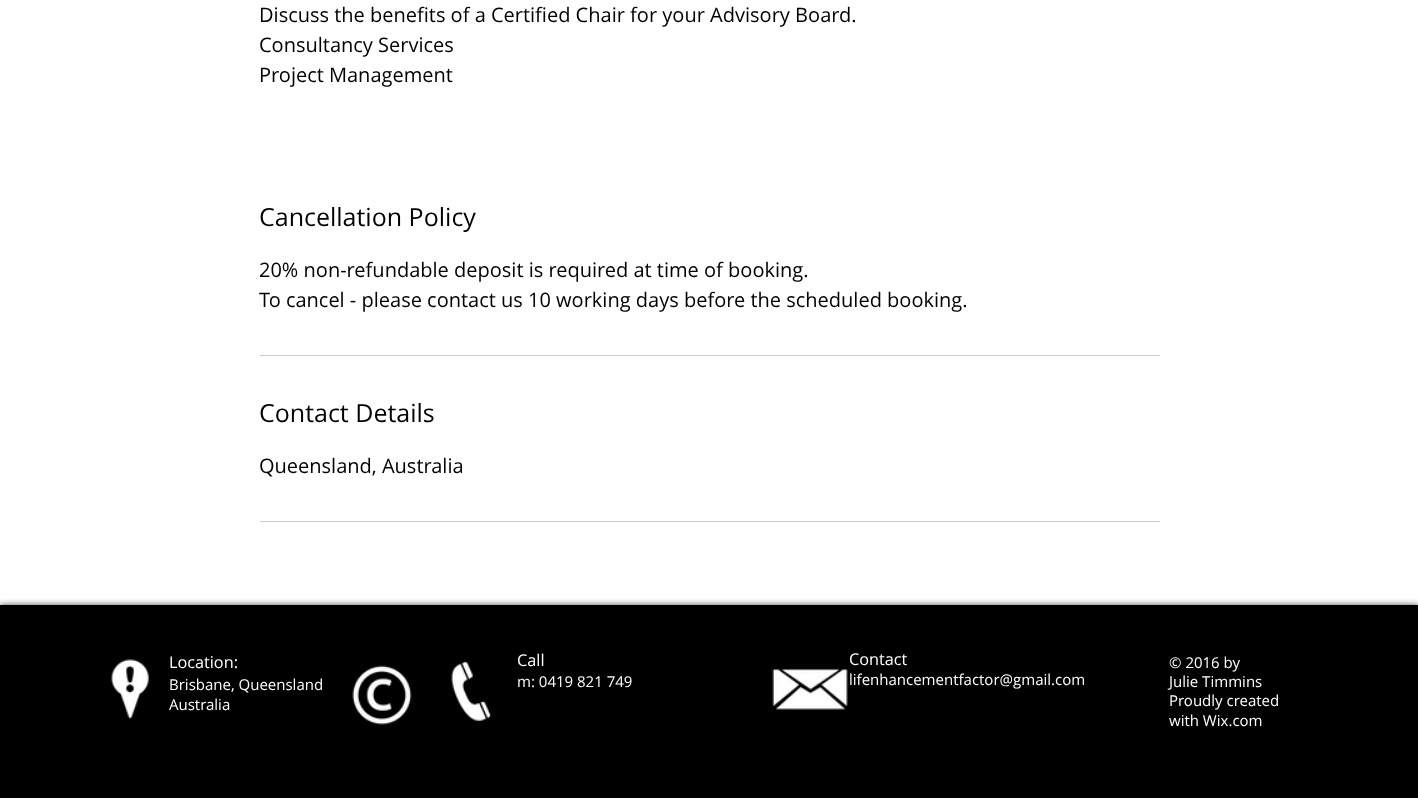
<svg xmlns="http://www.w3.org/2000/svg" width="1418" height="798">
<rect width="100%" height="100%" fill="#fff"/>
<text x="259" y="22" style="font-family:Open Sans;font-size:20px;fill:#000">Discuss the benefits of a Certified Chair for your Advisory Board.</text>
<text x="259" y="52" style="font-family:Open Sans;font-size:20px;fill:#000">Consultancy Services</text>
<text x="259" y="82" style="font-family:Open Sans;font-size:20px;fill:#000">Project Management</text>
<text x="259" y="226" style="font-family:Open Sans;font-size:25px;fill:#000">Cancellation Policy</text>
<text x="259" y="277" style="font-family:Open Sans;font-size:20px;fill:#000">20% non-refundable deposit is required at time of booking.</text>
<text x="259" y="307" style="font-family:Open Sans;font-size:20px;fill:#000">To cancel - please contact us 10 working days before the scheduled booking.</text>
<rect x="260" y="355" width="900" height="1" fill="#ccc"/>
<text x="259" y="422" style="font-family:Open Sans;font-size:25px;fill:#000">Contact Details</text>
<text x="259" y="473" style="font-family:Open Sans;font-size:20px;fill:#000">Queensland, Australia</text>
<rect x="260" y="521" width="900" height="1" fill="#ccc"/>
<rect y="605" width="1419" height="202" fill="#000000b3" filter="blur(3px)"/>
<rect y="605" width="1418" height="193" fill="#000"/>
<image x="111" y="659" width="38" height="60" href="media/1.png"/>
<text x="169" y="668" style="font-family:Open Sans;font-size:16.25px;fill:#fff">Location:</text>
<text x="169" y="690" style="font-family:Open Sans;font-size:15px;fill:#fff">Brisbane, Queensland</text>
<text x="169" y="710" style="font-family:Open Sans;font-size:15px;fill:#fff">Australia</text>
<image x="352" y="665" width="60" height="60" href="media/2.png"/>
<image x="451" y="661" width="40" height="60" href="media/3.png"/>
<text x="517" y="666" style="font-family:Open Sans;font-size:16.25px;fill:#fff">Call</text>
<text x="517" y="687" style="font-family:Open Sans;font-size:15px;fill:#fff">m: 0419 821 749</text>
<image x="772" y="668" width="76" height="42" href="media/4.png"/>
<text x="849" y="665" style="font-family:Open Sans;font-size:16.25px;fill:#fff">Contact</text>
<text x="849" y="685" style="font-family:Open Sans;font-size:15px;fill:#fff">lifenhancementfactor@gmail.com</text>
<text x="1169" y="668" style="font-family:Open Sans;font-size:15px;fill:#fff">© 2016 by</text>
<text x="1169" y="687" style="font-family:Open Sans;font-size:15px;fill:#fff">Julie Timmins</text>
<text x="1169" y="706" style="font-family:Open Sans;font-size:15px;fill:#fff">Proudly created</text>
<text x="1169" y="726" style="font-family:Open Sans;font-size:15px;fill:#fff">with Wix.com</text>
</svg>
